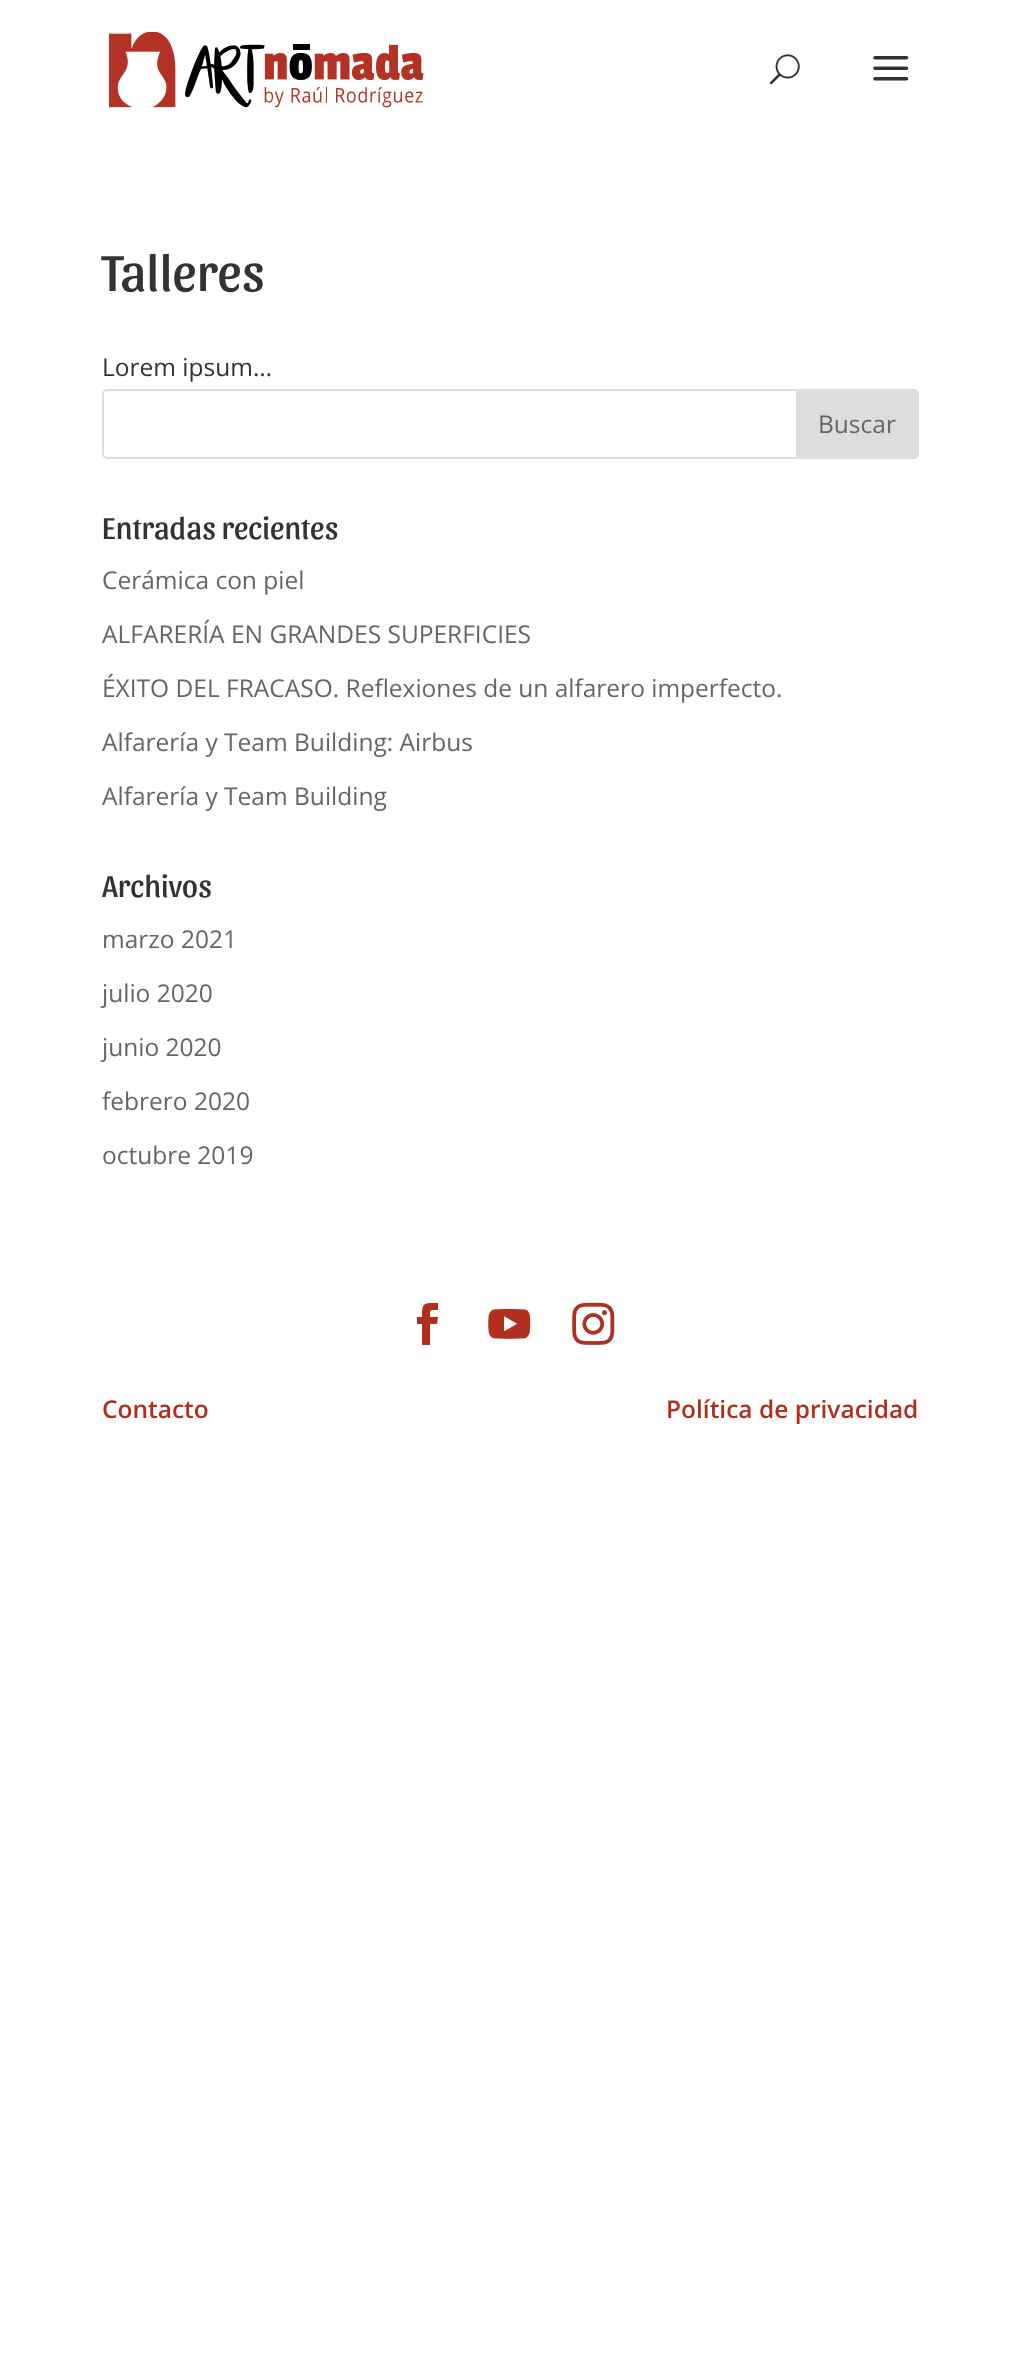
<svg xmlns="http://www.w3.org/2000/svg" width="1019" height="2365">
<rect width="100%" height="100%" fill="#fff"/>
<image x="109" y="32" width="315" height="76" href="media/1.png"/>
<image x="769" y="54" width="31" height="31" href="media/2.png"/>
<image x="873" y="56" width="36" height="25" href="media/3.png"/>
<text x="102" y="291" style="font-family:Sansita;font-size:52.5px;fill:#333">Talleres</text>
<text x="102" y="376" style="font-family:Open Sans;font-size:24.5px;fill:#333">Lorem ipsum…</text>
<rect x="103" y="390" width="815" height="68" rx="4" fill="none" stroke="#ddd" stroke-width="2"/>
<path d="M797 390h117c2 0 4 2 4 4v60c0 2-2 4-4 4h-117z" fill="#ddd" stroke="#ddd" stroke-width="2"/>
<text x="818" y="433" style="font-family:Open Sans;font-size:24.5px;fill:#666">Buscar</text>
<text x="102" y="539" style="font-family:Sansita;font-size:31.5px;fill:#333">Entradas recientes</text>
<text x="102" y="589" style="font-family:Open Sans;font-size:24.5px;fill:#666">Cerámica con piel</text>
<text x="102" y="643" style="font-family:Open Sans;font-size:24.5px;fill:#666">ALFARERÍA EN GRANDES SUPERFICIES</text>
<text x="102" y="697" style="font-family:Open Sans;font-size:24.5px;fill:#666">ÉXITO DEL FRACASO. Reflexiones de un alfarero imperfecto.</text>
<text x="102" y="751" style="font-family:Open Sans;font-size:24.5px;fill:#666">Alfarería y Team Building: Airbus</text>
<text x="102" y="805" style="font-family:Open Sans;font-size:24.5px;fill:#666">Alfarería y Team Building</text>
<text x="102" y="897" style="font-family:Sansita;font-size:31.5px;fill:#333">Archivos</text>
<text x="102" y="948" style="font-family:Open Sans;font-size:24.5px;fill:#666">marzo 2021</text>
<text x="102" y="1002" style="font-family:Open Sans;font-size:24.5px;fill:#666">julio 2020</text>
<text x="102" y="1056" style="font-family:Open Sans;font-size:24.5px;fill:#666">junio 2020</text>
<text x="102" y="1110" style="font-family:Open Sans;font-size:24.5px;fill:#666">febrero 2020</text>
<text x="102" y="1164" style="font-family:Open Sans;font-size:24.5px;fill:#666">octubre 2019</text>
<path d="M422 1345h8v-21h7l1-7h-8c0-8 0-7 8-7v-7c-14 0-16-1-16 14h-5v7h5z" fill="#b12f1f"/>
<image x="488" y="1309" width="43" height="30" href="media/4.png"/>
<image x="572" y="1302" width="43" height="43" href="media/5.png"/>
<text x="102" y="1418" style="font-family:Open Sans;font-size:24.5px;font-weight:600;fill:#b12f1f">Contacto</text>
<text x="666" y="1418" style="font-family:Open Sans;font-size:24.5px;font-weight:600;fill:#b12f1f">Política de privacidad</text>
</svg>
